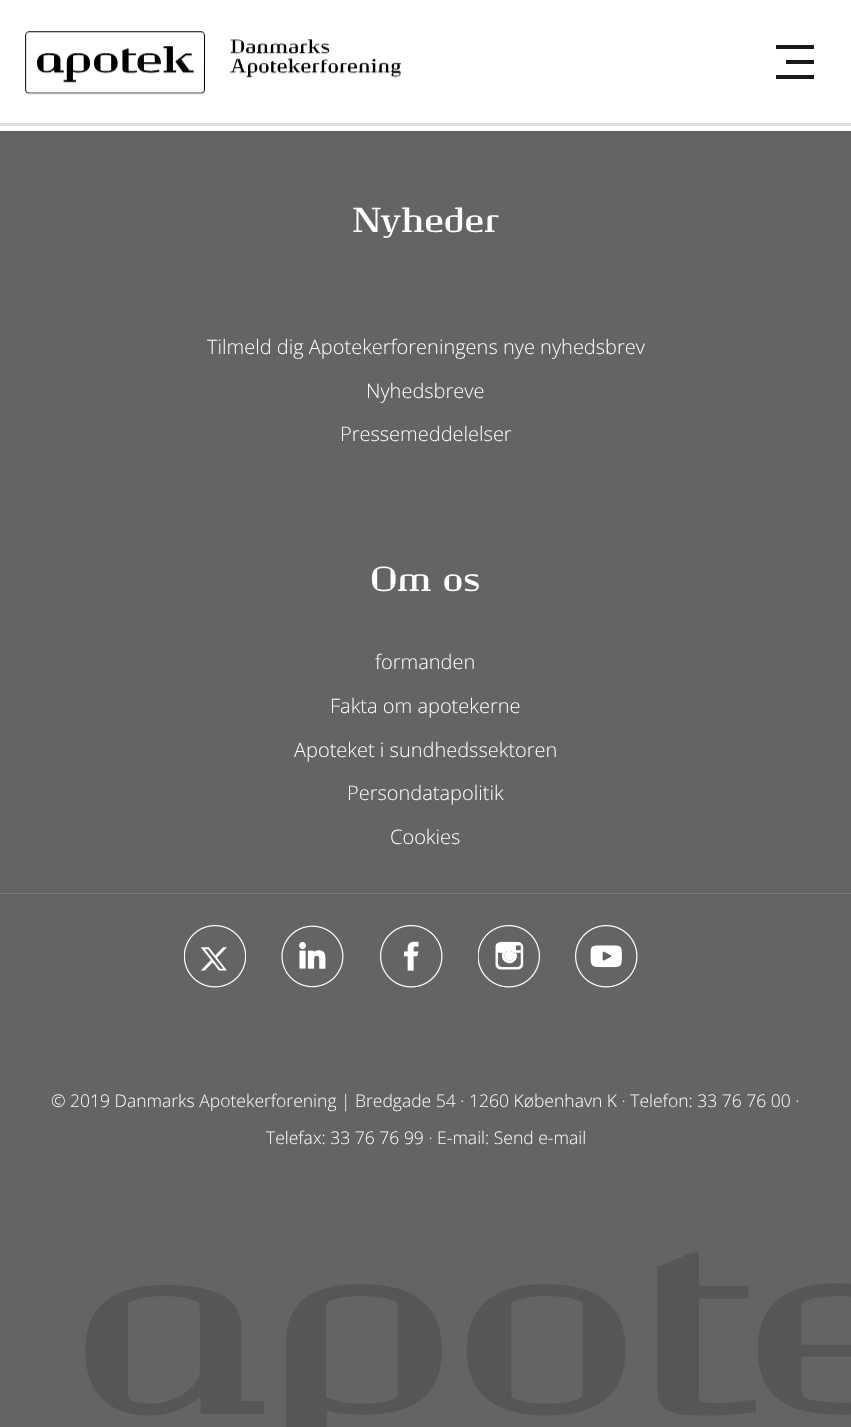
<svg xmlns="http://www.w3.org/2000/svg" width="851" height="1427">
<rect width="100%" height="100%" fill="#fff"/>
<image x="25" y="31" width="376" height="64" href="media/1.png"/>
<rect x="786" y="60" width="28" height="4" fill="#191919"/>
<rect x="776" y="45" width="38" height="4" fill="#191919"/>
<rect x="776" y="75" width="38" height="4" fill="#191919"/>
<rect y="123" width="851" height="3" fill="#ddd"/>
<rect y="131" width="851" height="1296" fill="#646563"/>
<text x="352" y="232" style="font-family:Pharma;font-size:35px;font-weight:bold;fill:#fff">Nyheder</text>
<text x="207" y="354" style="font-family:Open Sans;font-size:20px;font-weight:300;fill:#fff">Tilmeld dig Apotekerforeningens nye nyhedsbrev</text>
<text x="366" y="398" style="font-family:Open Sans;font-size:20px;font-weight:300;fill:#fff">Nyhedsbreve</text>
<text x="340" y="441" style="font-family:Open Sans;font-size:20px;font-weight:300;fill:#fff">Pressemeddelelser</text>
<text x="370" y="591" style="font-family:Pharma;font-size:35px;font-weight:bold;fill:#fff">Om os</text>
<text x="375" y="669" style="font-family:Open Sans;font-size:20px;font-weight:300;fill:#fff">formanden</text>
<text x="330" y="713" style="font-family:Open Sans;font-size:20px;font-weight:300;fill:#fff">Fakta om apotekerne</text>
<text x="294" y="757" style="font-family:Open Sans;font-size:20px;font-weight:300;fill:#fff">Apoteket i sundhedssektoren</text>
<text x="347" y="800" style="font-family:Open Sans;font-size:20px;font-weight:300;fill:#fff">Persondatapolitik</text>
<text x="390" y="844" style="font-family:Open Sans;font-size:20px;font-weight:300;fill:#fff">Cookies</text>
<rect y="893" width="851" height="1" fill="#7c7d7b"/>
<image x="184" y="925" width="62" height="63" href="media/2.png"/>
<image x="281" y="925" width="63" height="63" href="media/3.png"/>
<image x="380" y="925" width="63" height="63" href="media/4.png"/>
<image x="478" y="925" width="62" height="63" href="media/5.png"/>
<image x="575" y="925" width="63" height="63" href="media/6.png"/>
<text x="51" y="1107" style="font-family:Open Sans;font-size:17.5px;font-weight:300;fill:#fff">© 2019 Danmarks Apotekerforening | Bredgade 54 · 1260 København K · Telefon: 33 76 76 00 ·</text>
<text x="266" y="1144" style="font-family:Open Sans;font-size:17.5px;font-weight:300;fill:#fff">Telefax: 33 76 76 99 · E-mail: Send e-mail</text>
<image x="85" y="1252" width="766" height="175" href="media/7.png"/>
</svg>
